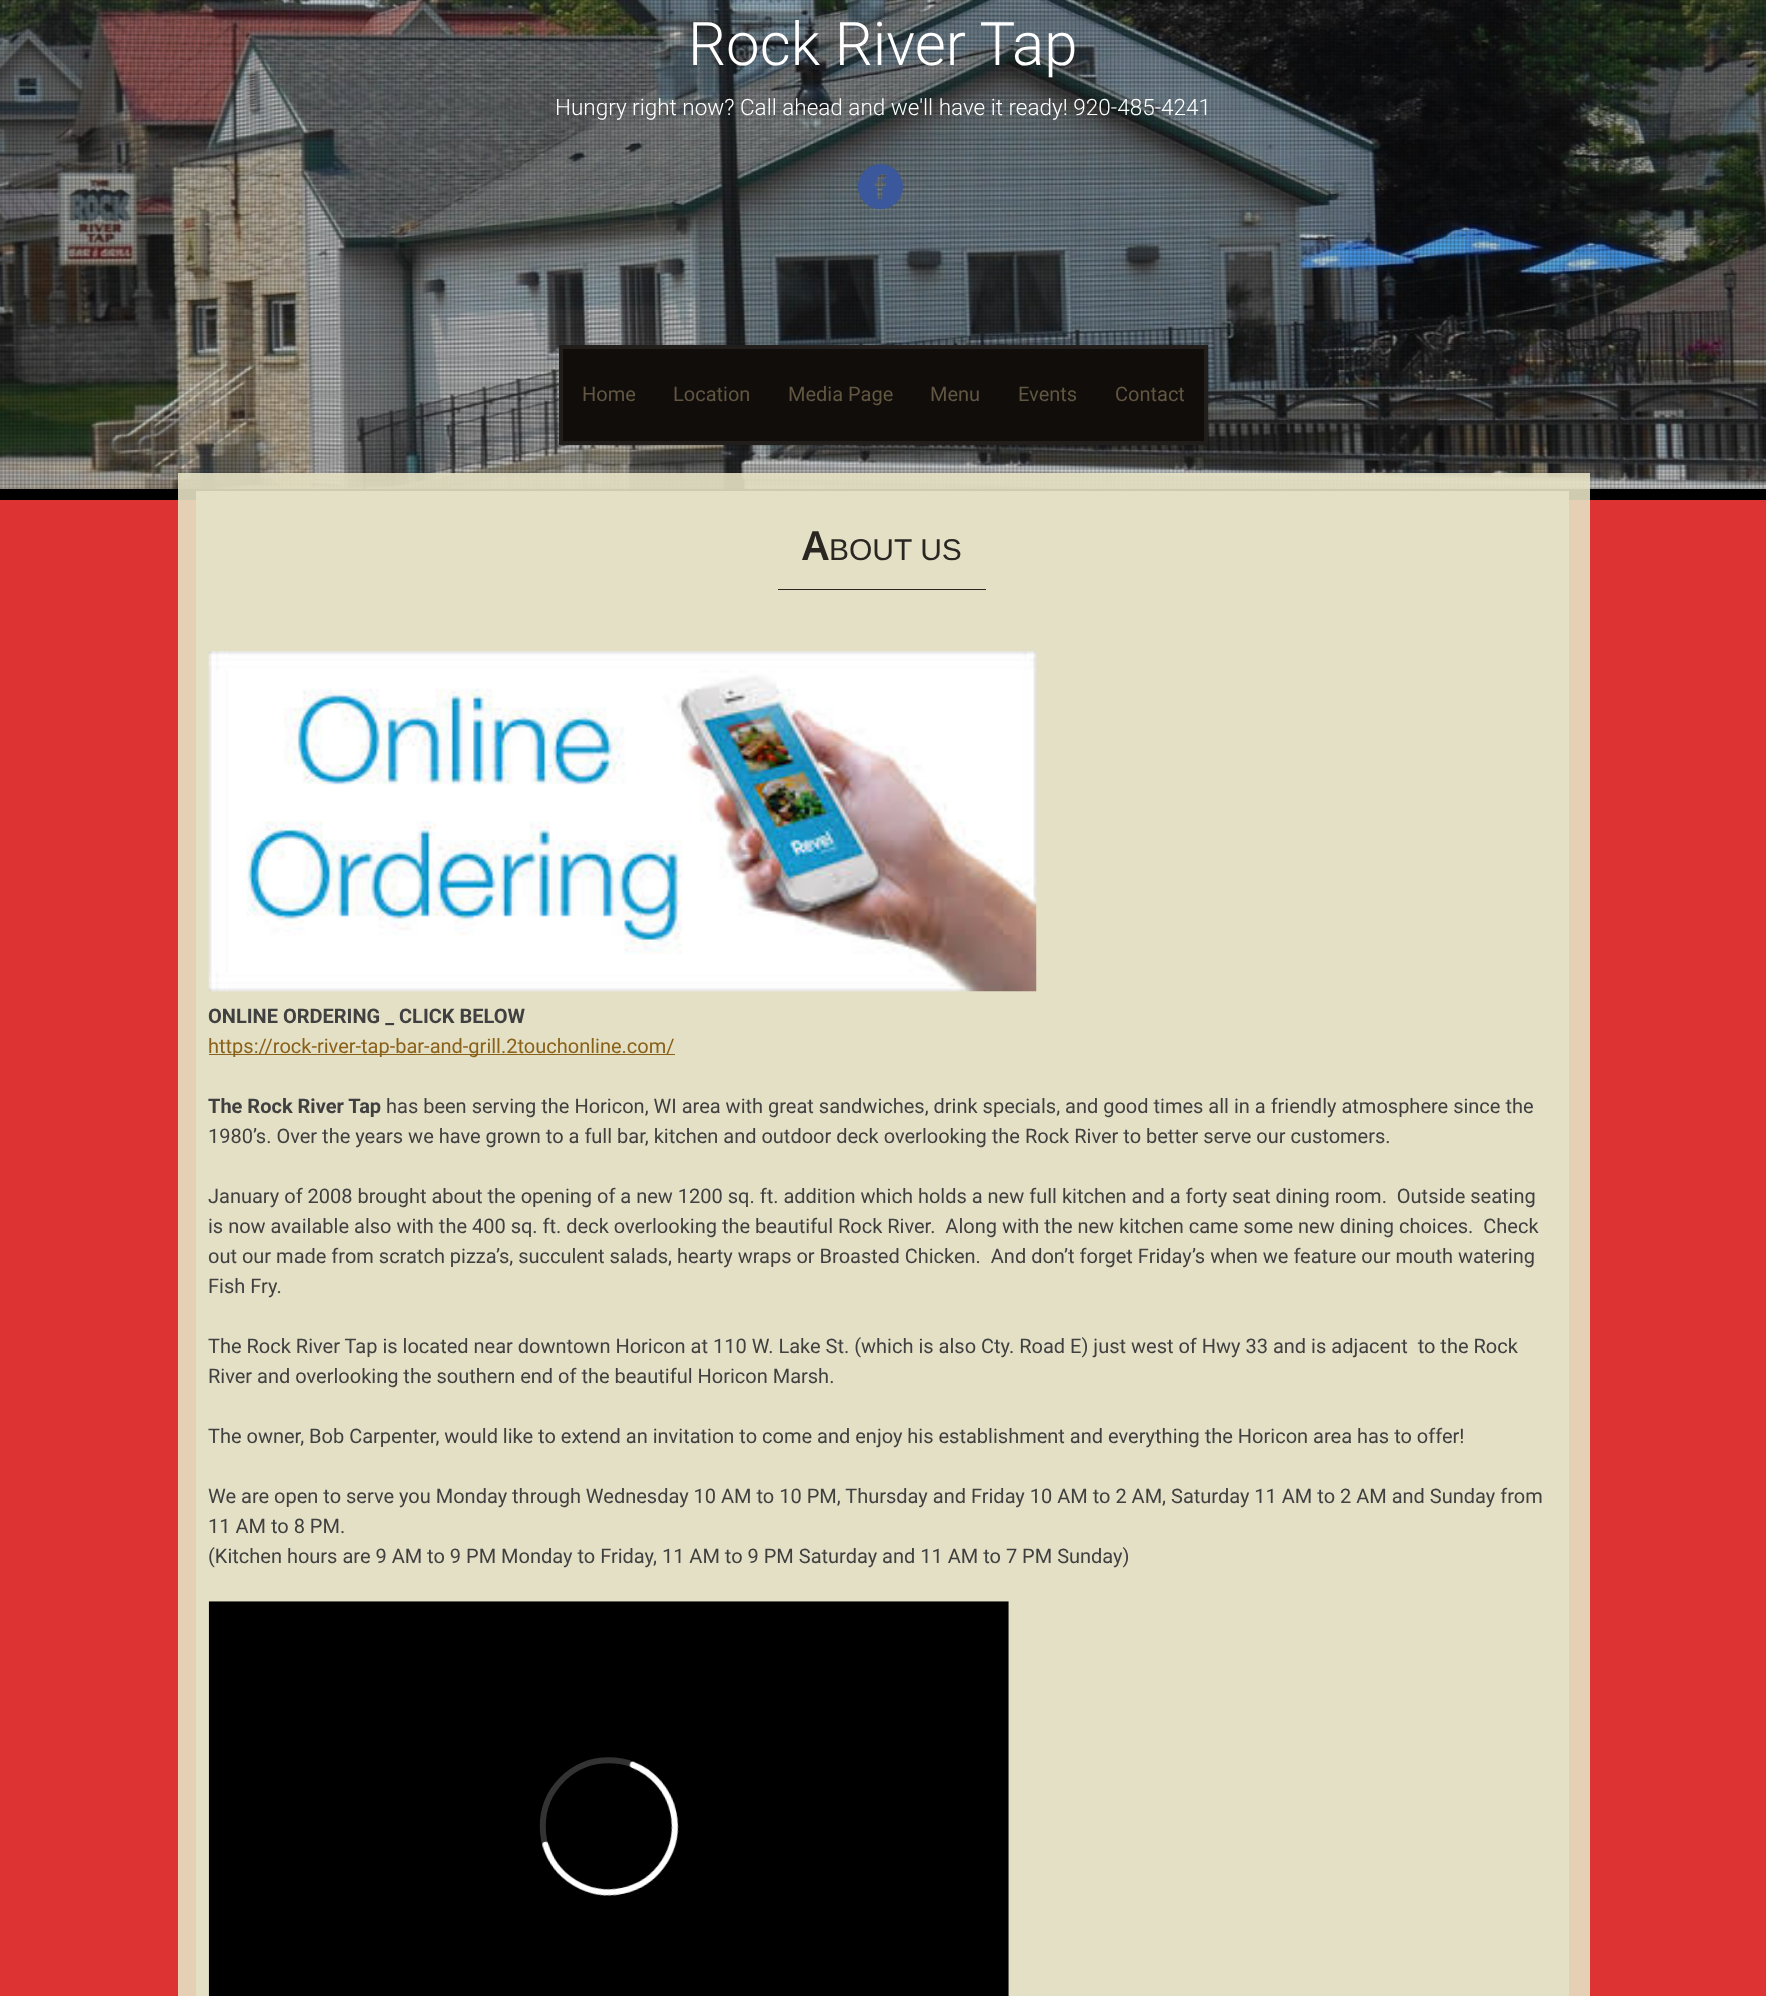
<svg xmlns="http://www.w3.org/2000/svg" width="1766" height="1996">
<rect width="100%" height="100%" fill="#d33"/>
<image x="0" y="0" width="1766" height="489" href="media/1.png"/>
<image x="0" y="0" width="1766" height="489" href="media/2.png"/>
<rect y="489" width="1766" height="11" fill="#000"/>
<text x="688" y="65" style="font-family:Roboto;font-size:60px;font-weight:300;fill:#fff">Rock River Tap</text>
<text x="555" y="115" style="font-family:Roboto;font-size:22.5px;font-weight:300;fill:#fff">Hungry right now? Call ahead and we'll have it ready! 920-485-4241</text>
<image x="857" y="164" width="46" height="45" href="media/3.png"/>
<rect x="561" y="347" width="645" height="96" fill="#100d0a" stroke="#211e1b" stroke-width="4"/>
<text x="582" y="401" style="font-family:Roboto;font-size:20px;fill:#615642">Home</text>
<text x="673" y="401" style="font-family:Roboto;font-size:20px;fill:#615642">Location</text>
<text x="788" y="401" style="font-family:Roboto;font-size:20px;fill:#615642">Media Page</text>
<text x="930" y="401" style="font-family:Roboto;font-size:20px;fill:#615642">Menu</text>
<text x="1018" y="401" style="font-family:Roboto;font-size:20px;fill:#615642">Events</text>
<text x="1115" y="401" style="font-family:Roboto;font-size:20px;fill:#615642">Contact</text>
<rect x="178" y="473" width="1412" height="1523" fill="#e6e1c4e6"/>
<rect x="196" y="491" width="1373" height="1505" fill="#e4e0c6"/>
<rect x="778" y="589" width="208" height="1" fill="#2a2622"/>
<text x="802" y="560" style="font-family:Noto Sans;font-size:40px;font-weight:600;fill:#2a2622">A</text>
<text x="829" y="560" style="font-family:Liberation Sans;font-size:30px;fill:#2a2622">BOUT US</text>
<image x="208" y="651" width="829" height="341" href="media/4.png"/>
<text x="208" y="1023" style="font-family:Roboto;font-size:20px;font-weight:bold;fill:#404040">ONLINE ORDERING _ CLICK BELOW</text>
<rect x="209" y="1054" width="466" height="1" fill="#8a6119"/>
<text x="208" y="1053" style="font-family:Roboto;font-size:20px;fill:#8a6119">https://rock-river-tap-bar-and-grill.2touchonline.com/</text>
<text x="208" y="1113" style="font-family:Roboto;font-size:20px;font-weight:bold;fill:#404040">The Rock River Tap</text>
<text x="386" y="1113" style="font-family:Roboto;font-size:20px;fill:#404040">has been serving the Horicon, WI area with great sandwiches, drink specials, and good times all in a friendly atmosphere since the</text>
<text x="208" y="1143" style="font-family:Roboto;font-size:20px;fill:#404040">1980’s. Over the years we have grown to a full bar, kitchen and outdoor deck overlooking the Rock River to better serve our customers.</text>
<text x="208" y="1203" style="font-family:Roboto;font-size:20px;fill:#404040" xml:space="preserve">January of 2008 brought about the opening of a new 1200 sq. ft. addition which holds a new full kitchen and a forty seat dining room.  Outside seating</text>
<text x="208" y="1233" style="font-family:Roboto;font-size:20px;fill:#404040" xml:space="preserve">is now available also with the 400 sq. ft. deck overlooking the beautiful Rock River.  Along with the new kitchen came some new dining choices.  Check</text>
<text x="208" y="1263" style="font-family:Roboto;font-size:20px;fill:#404040" xml:space="preserve">out our made from scratch pizza’s, succulent salads, hearty wraps or Broasted Chicken.  And don’t forget Friday’s when we feature our mouth watering</text>
<text x="208" y="1293" style="font-family:Roboto;font-size:20px;fill:#404040">Fish Fry.</text>
<text x="208" y="1353" style="font-family:Roboto;font-size:20px;fill:#404040" xml:space="preserve">The Rock River Tap is located near downtown Horicon at 110 W. Lake St. (which is also Cty. Road E) just west of Hwy 33 and is adjacent  to the Rock</text>
<text x="208" y="1383" style="font-family:Roboto;font-size:20px;fill:#404040">River and overlooking the southern end of the beautiful Horicon Marsh.</text>
<text x="208" y="1443" style="font-family:Roboto;font-size:20px;fill:#404040">The owner, Bob Carpenter, would like to extend an invitation to come and enjoy his establishment and everything the Horicon area has to offer!</text>
<text x="208" y="1503" style="font-family:Roboto;font-size:20px;fill:#404040">We are open to serve you Monday through Wednesday 10 AM to 10 PM, Thursday and Friday 10 AM to 2 AM, Saturday 11 AM to 2 AM and Sunday from</text>
<text x="208" y="1533" style="font-family:Roboto;font-size:20px;fill:#404040">11 AM to 8 PM.</text>
<text x="208" y="1563" style="font-family:Roboto;font-size:20px;fill:#404040">(Kitchen hours are 9 AM to 9 PM Monday to Friday, 11 AM to 9 PM Saturday and 11 AM to 7 PM Sunday)</text>
<image x="208" y="1601" width="801" height="395" href="media/5.png"/>
</svg>
